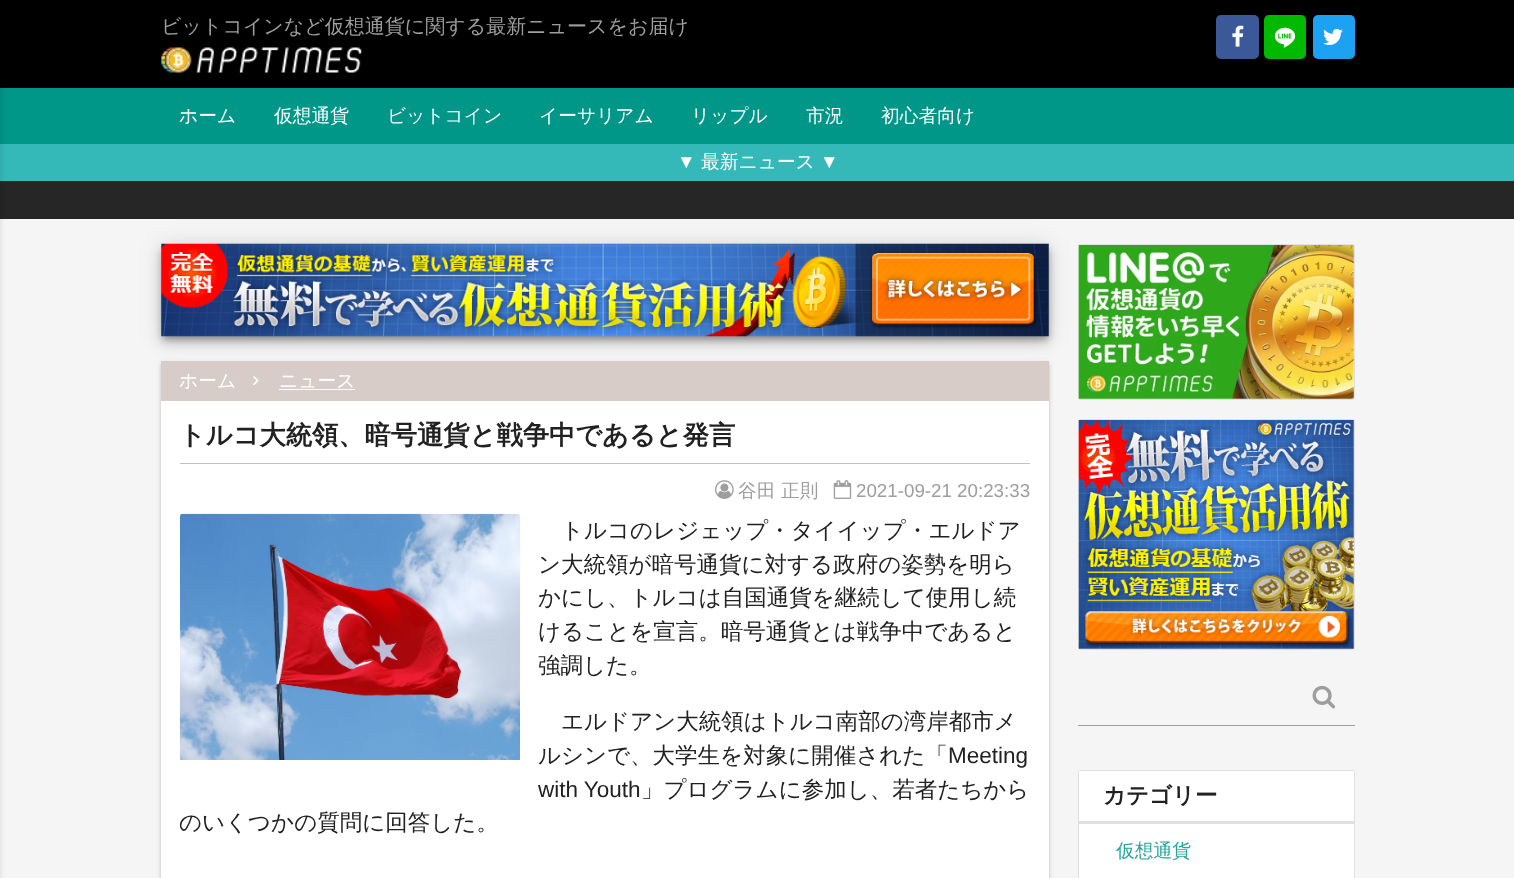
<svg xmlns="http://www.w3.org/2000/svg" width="1514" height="878">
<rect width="100%" height="100%" fill="#f5f5f5"/>
<rect width="1514" height="88" fill="#000"/>
<rect y="88" width="1514" height="56" fill="#009688"/>
<rect y="144" width="1514" height="37" fill="#34b8b8"/>
<rect y="181" width="1514" height="38" fill="#262626"/>
<rect x="-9" y="1" width="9" height="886" fill="#0000001f" filter="blur(3px)"/>
<text x="161" y="33" style="font-family:WenQuanYi Zen Hei;font-size:20px;font-weight:500;fill:#9e9e9e">ビットコインなど仮想通貨に関する最新ニュースをお届け</text>
<image x="161" y="47" width="201" height="26" href="media/1.png"/>
<rect x="1216" y="15" width="43" height="44" rx="5" fill="#3b5998"/>
<image x="1232" y="25" width="12" height="22" href="media/2.png"/>
<rect x="1264" y="15" width="42" height="44" rx="5" fill="#00b900"/>
<image x="1274" y="27" width="22" height="21" href="media/3.png"/>
<rect x="1313" y="15" width="42" height="44" rx="5" fill="#1da1f2"/>
<image x="1323" y="28" width="20" height="17" href="media/4.png"/>
<text x="179" y="122" style="font-family:WenQuanYi Zen Hei;font-size:18.75px;font-weight:500;fill:#fff">ホーム</text>
<text x="274" y="122" style="font-family:WenQuanYi Zen Hei;font-size:18.75px;font-weight:500;fill:#fff">仮想通貨</text>
<text x="387" y="122" style="font-family:WenQuanYi Zen Hei;font-size:18.75px;font-weight:500;fill:#fff">ビットコイン</text>
<text x="539" y="122" style="font-family:WenQuanYi Zen Hei;font-size:18.75px;font-weight:500;fill:#fff">イーサリアム</text>
<text x="691" y="122" style="font-family:WenQuanYi Zen Hei;font-size:18.75px;font-weight:500;fill:#fff">リップル</text>
<text x="806" y="122" style="font-family:WenQuanYi Zen Hei;font-size:18.75px;font-weight:500;fill:#fff">市況</text>
<text x="881" y="122" style="font-family:WenQuanYi Zen Hei;font-size:18.75px;font-weight:500;fill:#fff">初心者向け</text>
<text x="677" y="168" style="font-family:Liberation Sans;font-size:18.75px;fill:#fff">▼</text>
<text x="701" y="168" style="font-family:WenQuanYi Zen Hei;font-size:18.75px;font-weight:500;fill:#fff">最新ニュース</text>
<text x="820" y="168" style="font-family:Liberation Sans;font-size:18.75px;fill:#fff">▼</text>
<rect x="161" y="363" width="888" height="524" fill="#0000001f" filter="blur(3px)"/>
<rect x="161" y="364" width="888" height="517" fill="#00000024" filter="blur(1px)"/>
<rect x="161" y="361" width="888" height="40" fill="#d7ccc8"/>
<rect x="161" y="245" width="888" height="93" fill="#0000001f" filter="blur(11px)"/>
<rect x="161" y="251" width="888" height="93" fill="#00000024" filter="blur(6px)"/>
<rect x="163" y="249" width="885" height="90" fill="#0000004d" filter="blur(3px)"/>
<image x="161" y="243" width="888" height="94" href="media/5.png"/>
<text x="179" y="387" style="font-family:WenQuanYi Zen Hei;font-size:18.75px;font-weight:500;fill:#fff">ホーム</text>
<image x="253" y="376" width="6" height="9" href="media/6.png"/>
<text x="279" y="387" style="font-family:WenQuanYi Zen Hei;font-size:18.75px;font-weight:500;fill:#fff">ニュース</text>
<rect x="279" y="389" width="76" height="1" fill="#fff"/>
<rect x="161" y="401" width="888" height="477" fill="#fff"/>
<rect x="180" y="463" width="850" height="1" fill="#c0c0c0"/>
<text x="179" y="444" style="font-family:WenQuanYi Zen Hei;font-size:26.25px;font-weight:bold;fill:#212121">トルコ大統領、暗号通貨と戦争中であると発言</text>
<image x="715" y="480" width="19" height="19" href="media/7.png"/>
<text x="738" y="497" style="font-family:WenQuanYi Zen Hei;font-size:18.75px;font-weight:500;fill:#9e9e9e">谷田 正則</text>
<image x="833" y="480" width="19" height="19" href="media/8.png"/>
<text x="856" y="497" style="font-family:Liberation Sans;font-size:18.75px;fill:#9e9e9e">2021-09-21 20:23:33</text>
<image x="180" y="513" width="340" height="247" href="media/9.png"/>
<text x="561" y="538" style="font-family:WenQuanYi Zen Hei;font-size:22.5px;font-weight:500;fill:#212121">トルコのレジェップ・タイイップ・エルドア</text>
<text x="538" y="572" style="font-family:WenQuanYi Zen Hei;font-size:22.5px;font-weight:500;fill:#212121">ン大統領が暗号通貨に対する政府の姿勢を明ら</text>
<text x="538" y="605" style="font-family:WenQuanYi Zen Hei;font-size:22.5px;font-weight:500;fill:#212121">かにし、トルコは自国通貨を継続して使用し続</text>
<text x="538" y="639" style="font-family:WenQuanYi Zen Hei;font-size:22.5px;font-weight:500;fill:#212121">けることを宣言。暗号通貨とは戦争中であると</text>
<text x="538" y="673" style="font-family:WenQuanYi Zen Hei;font-size:22.5px;font-weight:500;fill:#212121">強調した。</text>
<text x="561" y="729" style="font-family:WenQuanYi Zen Hei;font-size:22.5px;font-weight:500;fill:#212121">エルドアン大統領はトルコ南部の湾岸都市メ</text>
<text x="538" y="763" style="font-family:WenQuanYi Zen Hei;font-size:22.5px;font-weight:500;fill:#212121">ルシンで、大学生を対象に開催された「</text>
<text x="948" y="763" style="font-family:Liberation Sans;font-size:22.5px;fill:#212121">Meeting</text>
<text x="538" y="797" style="font-family:Liberation Sans;font-size:22.5px;fill:#212121">with Youth</text>
<text x="641" y="797" style="font-family:WenQuanYi Zen Hei;font-size:22.5px;font-weight:500;fill:#212121">」プログラムに参加し、若者たちから</text>
<text x="179" y="830" style="font-family:WenQuanYi Zen Hei;font-size:22.5px;font-weight:500;fill:#212121">のいくつかの質問に回答した。</text>
<rect x="1078.5" y="244.5" width="276" height="155" rx="2" fill="none" stroke="#e0e0e0"/>
<image x="1078" y="245" width="276" height="154" href="media/10.png"/>
<rect x="1078.5" y="419.5" width="276" height="230" rx="2" fill="none" stroke="#e0e0e0"/>
<image x="1078" y="420" width="276" height="229" href="media/11.png"/>
<image x="1312" y="685" width="24" height="24" href="media/12.png"/>
<rect x="1078" y="725" width="277" height="1" fill="#9e9e9e"/>
<rect x="1078.5" y="770.5" width="276" height="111" rx="2" fill="none" stroke="#e0e0e0"/>
<path d="M1080 771h273c.5 0 1 .5 1 1v52h-275v-52c0-.5 .5-1 1-1z" fill="#fff"/>
<rect x="1079" y="821" width="275" height="3" fill="#e0e0e0"/>
<text x="1103" y="803" style="font-family:WenQuanYi Zen Hei;font-size:22.5px;font-weight:bold;fill:#212121">カテゴリー</text>
<rect x="1079" y="824" width="275" height="54" fill="#fff"/>
<text x="1116" y="857" style="font-family:WenQuanYi Zen Hei;font-size:18.75px;font-weight:500;fill:#26a69a">仮想通貨</text>
</svg>
